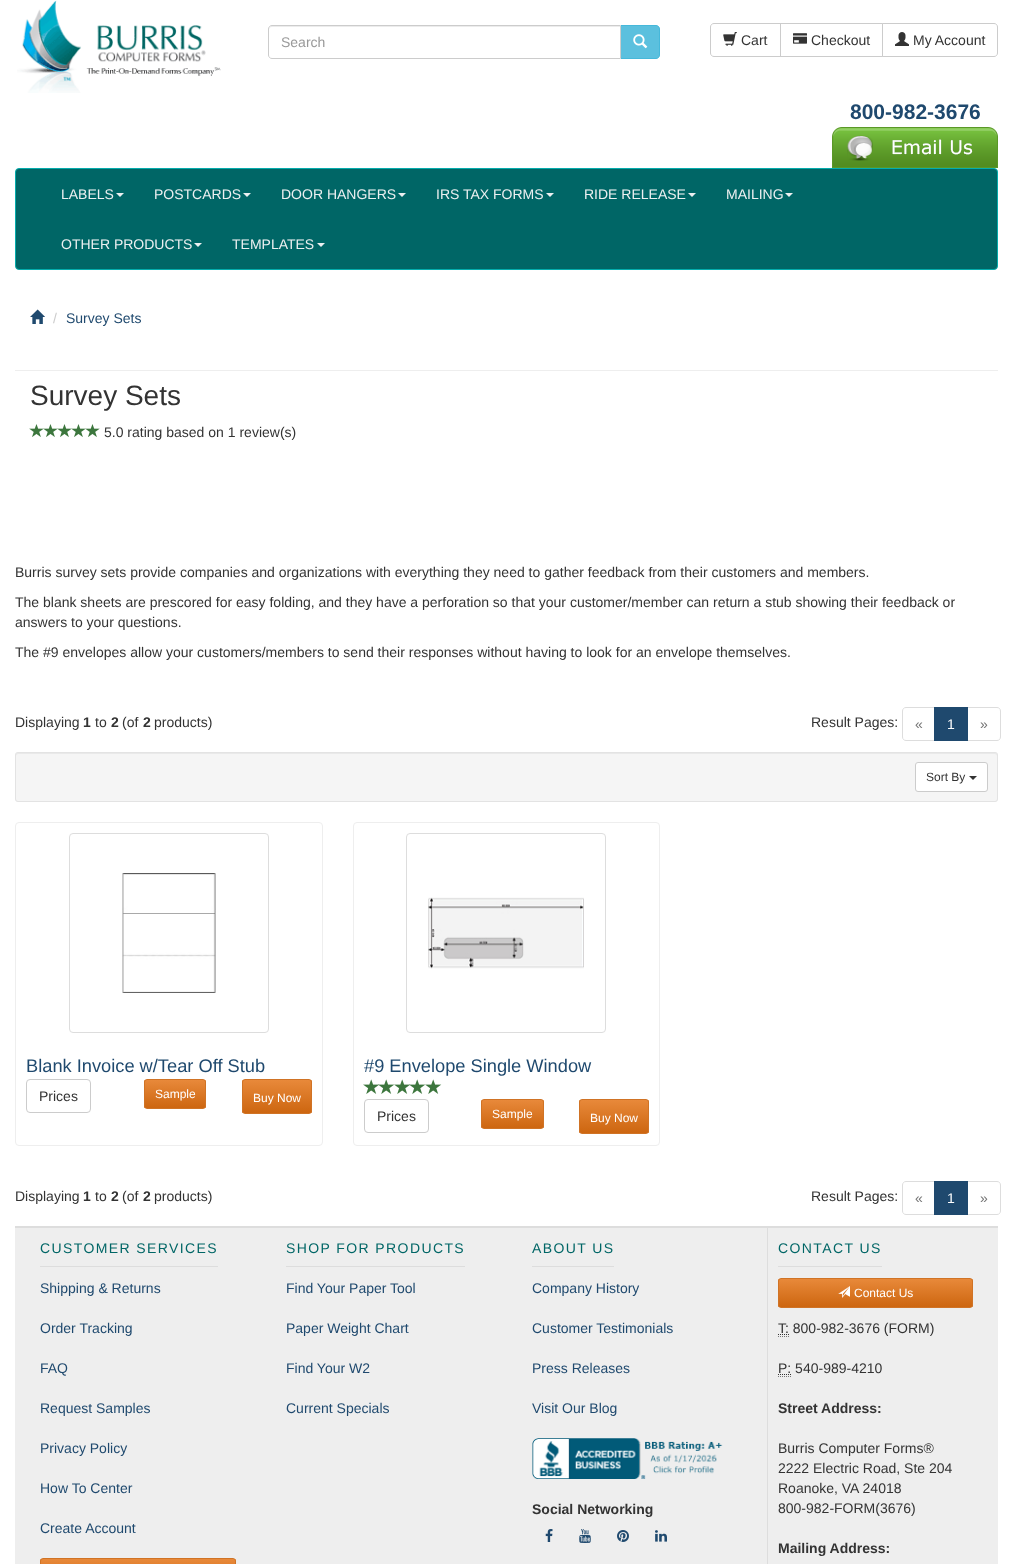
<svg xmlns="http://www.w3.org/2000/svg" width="1013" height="1564">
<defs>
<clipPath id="clip1"><rect x="144" y="1079" width="62" height="30" rx="3"/></clipPath>
<linearGradient id="g1" gradientUnits="userSpaceOnUse" x1="175" y1="1080" x2="175" y2="1108"><stop offset="0" stop-color="#e8893a"/><stop offset="1" stop-color="#cd6610"/></linearGradient>
<clipPath id="clip2"><rect x="242" y="1079" width="70" height="35" rx="3"/></clipPath>
<linearGradient id="g2" gradientUnits="userSpaceOnUse" x1="277" y1="1080" x2="277" y2="1113"><stop offset="0" stop-color="#e8893a"/><stop offset="1" stop-color="#cd6610"/></linearGradient>
<clipPath id="clip3"><rect x="481" y="1099" width="63" height="30" rx="3"/></clipPath>
<linearGradient id="g3" gradientUnits="userSpaceOnUse" x1="513" y1="1100" x2="513" y2="1128"><stop offset="0" stop-color="#e8893a"/><stop offset="1" stop-color="#cd6610"/></linearGradient>
<clipPath id="clip4"><rect x="579" y="1099" width="70" height="35" rx="3"/></clipPath>
<linearGradient id="g4" gradientUnits="userSpaceOnUse" x1="614" y1="1100" x2="614" y2="1133"><stop offset="0" stop-color="#e8893a"/><stop offset="1" stop-color="#cd6610"/></linearGradient>
<clipPath id="clip5"><rect x="40" y="1558" width="196" height="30" rx="3"/></clipPath>
<linearGradient id="g5" gradientUnits="userSpaceOnUse" x1="138" y1="1559" x2="138" y2="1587"><stop offset="0" stop-color="#e8893a"/><stop offset="1" stop-color="#cd6610"/></linearGradient>
<clipPath id="clip6"><rect x="778" y="1278" width="195" height="30" rx="3"/></clipPath>
<linearGradient id="g6" gradientUnits="userSpaceOnUse" x1="876" y1="1279" x2="876" y2="1307"><stop offset="0" stop-color="#e8893a"/><stop offset="1" stop-color="#cd6610"/></linearGradient>
</defs>
<rect width="100%" height="100%" fill="#fff"/>
<image x="17" y="0" width="204" height="93" href="media/1.png"/>
<path d="M620.5 25.5h35.5c2 0 3.5 1.5 3.5 3.5v26c0 2-1.5 3.5-3.5 3.5h-35.5z" fill="#5bc0de" stroke="#46b8da"/>
<path d="M272 25h349v34h-349c-2 0-4-2-4-4v-26c0-2 2-4 4-4z" fill="#fff"/>
<path d="M272 27h348v-1h-348c-2 0-3 1-3 3v1c0-2 1-3 3-3z" fill="#ececec"/>
<path d="M272 25.5h348.5v33h-348.5c-2 0-3.5-1.5-3.5-3.5v-26c0-2 1.5-3.5 3.5-3.5z" fill="none" stroke="#ccc"/>
<text x="281" y="47" style="font-family:Liberation Sans;font-size:14px;fill:#999">Search</text>
<image x="633" y="34" width="15" height="15" href="media/2.png"/>
<path d="M714 23.5h66.5v33h-66.5c-2 0-3.5-1.5-3.5-3.5v-26c0-2 1.5-3.5 3.5-3.5z" fill="none" stroke="#ccc"/>
<image x="723" y="32" width="14" height="14" href="media/3.png"/>
<text x="741" y="45" style="font-family:Liberation Sans;font-size:14px;fill:#333">Cart</text>
<rect x="780.5" y="23.5" width="102" height="33" fill="none" stroke="#ccc"/>
<image x="793" y="33" width="14" height="11" href="media/4.png"/>
<text x="811" y="45" style="font-family:Liberation Sans;font-size:14px;fill:#333">Checkout</text>
<path d="M882.5 23.5h111.5c2 0 3.5 1.5 3.5 3.5v26c0 2-1.5 3.5-3.5 3.5h-111.5z" fill="#fff" stroke="#ccc"/>
<image x="895" y="32" width="14" height="14" href="media/5.png"/>
<text x="913" y="45" style="font-family:Liberation Sans;font-size:14px;fill:#333">My Account</text>
<text x="850" y="119" style="font-family:Liberation Sans;font-size:21px;font-weight:bold;fill:#1f496e">800-982-3676</text>
<image x="832" y="127" width="166" height="41" href="media/6.png"/>
<rect x="15.5" y="168.5" width="982" height="101" rx="3.5" fill="#066" stroke="#04acac"/>
<text x="61" y="199" style="font-family:Liberation Sans;font-size:14px;fill:#ecf0f1">LABELS</text>
<path d="M116 193h8l-4 4z" fill="#ecf0f1"/>
<text x="154" y="199" style="font-family:Liberation Sans;font-size:14px;fill:#ecf0f1">POSTCARDS</text>
<path d="M243 193h8l-4 4z" fill="#ecf0f1"/>
<text x="281" y="199" style="font-family:Liberation Sans;font-size:14px;fill:#ecf0f1">DOOR HANGERS</text>
<path d="M398 193h8l-4 4z" fill="#ecf0f1"/>
<text x="436" y="199" style="font-family:Liberation Sans;font-size:14px;fill:#ecf0f1">IRS TAX FORMS</text>
<path d="M546 193h8l-4 4z" fill="#ecf0f1"/>
<text x="584" y="199" style="font-family:Liberation Sans;font-size:14px;fill:#ecf0f1">RIDE RELEASE</text>
<path d="M688 193h8l-4 4z" fill="#ecf0f1"/>
<text x="726" y="199" style="font-family:Liberation Sans;font-size:14px;fill:#ecf0f1">MAILING</text>
<path d="M785 193h8l-4 4z" fill="#ecf0f1"/>
<text x="61" y="249" style="font-family:Liberation Sans;font-size:14px;fill:#ecf0f1">OTHER PRODUCTS</text>
<path d="M194 243h8l-4 4z" fill="#ecf0f1"/>
<text x="232" y="249" style="font-family:Liberation Sans;font-size:14px;fill:#ecf0f1">TEMPLATES</text>
<path d="M317 243h8l-4 4z" fill="#ecf0f1"/>
<image x="30" y="309" width="15" height="15" href="media/7.png"/>
<text x="53" y="323" style="font-family:Liberation Sans;font-size:14px;fill:#ccc">/</text>
<text x="66" y="323" style="font-family:Liberation Sans;font-size:14px;fill:#1f496e">Survey Sets</text>
<rect x="15" y="370" width="983" height="1" fill="#eee"/>
<text x="30" y="405" style="font-family:Liberation Sans;font-size:28px;fill:#333">Survey Sets</text>
<image x="29" y="424" width="15" height="13" href="media/8.png"/>
<image x="43" y="424" width="15" height="13" href="media/9.png"/>
<image x="57" y="424" width="15" height="13" href="media/9.png"/>
<image x="71" y="424" width="15" height="13" href="media/9.png"/>
<image x="85" y="424" width="15" height="13" href="media/9.png"/>
<text x="104" y="437" style="font-family:Liberation Sans;font-size:14px;fill:#333">5.0 rating based on 1 review(s)</text>
<text x="15" y="577" style="font-family:Liberation Sans;font-size:14px;fill:#333">Burris survey sets provide companies and organizations with everything they need to gather feedback from their customers and members.</text>
<text x="15" y="607" style="font-family:Liberation Sans;font-size:14px;fill:#333">The blank sheets are prescored for easy folding, and they have a perforation so that your customer/member can return a stub showing their feedback or</text>
<text x="15" y="627" style="font-family:Liberation Sans;font-size:14px;fill:#333">answers to your questions.</text>
<text x="15" y="657" style="font-family:Liberation Sans;font-size:14px;fill:#333">The #9 envelopes allow your customers/members to send their responses without having to look for an envelope themselves.</text>
<text x="15" y="727" style="font-family:Liberation Sans;font-size:14px;fill:#333">Displaying</text>
<text x="83" y="727" style="font-family:Liberation Sans;font-size:14px;font-weight:bold;fill:#333">1</text>
<text x="95" y="727" style="font-family:Liberation Sans;font-size:14px;fill:#333">to</text>
<text x="111" y="727" style="font-family:Liberation Sans;font-size:14px;font-weight:bold;fill:#333">2</text>
<text x="122" y="727" style="font-family:Liberation Sans;font-size:14px;fill:#333">(of</text>
<text x="143" y="727" style="font-family:Liberation Sans;font-size:14px;font-weight:bold;fill:#333">2</text>
<text x="154" y="727" style="font-family:Liberation Sans;font-size:14px;fill:#333">products)</text>
<text x="811" y="727" style="font-family:Liberation Sans;font-size:14px;fill:#333">Result Pages:</text>
<path d="M906 707.5h28.5v33h-28.5c-2 0-3.5-1.5-3.5-3.5v-26c0-2 1.5-3.5 3.5-3.5z" fill="none" stroke="#ddd"/>
<text x="915" y="729" style="font-family:Liberation Sans;font-size:14px;fill:#777">«</text>
<path d="M967.5 707.5h29.5c2 0 3.5 1.5 3.5 3.5v26c0 2-1.5 3.5-3.5 3.5h-29.5z" fill="none" stroke="#ddd"/>
<rect x="934" y="707" width="34" height="34" fill="#1f496e"/>
<text x="947" y="729" style="font-family:Liberation Sans;font-size:14px;fill:#fff">1</text>
<text x="980" y="729" style="font-family:Liberation Sans;font-size:14px;fill:#777">»</text>
<rect x="15" y="752" width="983" height="50" rx="3" fill="#f5f5f5"/>
<path d="M18 754h977c1 0 2 1 2 2v-1c0-1-1-2-2-2h-977c-1 0-2 1-2 2v1c0-1 1-2 2-2z" fill="#e9e9e9"/>
<rect x="15.5" y="752.5" width="982" height="49" rx="2.5" fill="none" stroke="#e3e3e3"/>
<rect x="915.5" y="762.5" width="72" height="29" rx="2.5" fill="#fff" stroke="#ccc"/>
<text x="926" y="781" style="font-family:Liberation Sans;font-size:12px;fill:#333">Sort By</text>
<path d="M969 776h8l-4 4z" fill="#333"/>
<rect x="15.5" y="822.5" width="307" height="323" rx="3.5" fill="none" stroke="#eee"/>
<rect x="69.5" y="833.5" width="199" height="199" rx="3.5" fill="none" stroke="#ddd"/>
<image x="122" y="873" width="94" height="120" href="media/10.png"/>
<text x="26" y="1072" style="font-family:Liberation Sans;font-size:18.25px;fill:#1f496e">Blank Invoice w/Tear Off Stub</text>
<rect x="26.5" y="1079.5" width="64" height="33" rx="3.5" fill="none" stroke="#ccc"/>
<text x="39" y="1101" style="font-family:Liberation Sans;font-size:14px;fill:#333">Prices</text>
<g clip-path="url(#clip1)">
<rect x="144" y="1080" width="62" height="28" fill="url(#g1)"/>
</g>
<rect x="144.5" y="1079.5" width="61" height="29" rx="2.5" fill="none" stroke="#d07325"/>
<text x="155" y="1098" style="font-family:Liberation Sans;font-size:12px;fill:#fff">Sample</text>
<g clip-path="url(#clip2)">
<rect x="242" y="1080" width="70" height="33" fill="url(#g2)"/>
</g>
<rect x="242.5" y="1079.5" width="69" height="34" rx="2.5" fill="none" stroke="#d07325"/>
<text x="253" y="1102" style="font-family:Liberation Sans;font-size:12px;fill:#fff">Buy Now</text>
<rect x="353.5" y="822.5" width="306" height="323" rx="3.5" fill="none" stroke="#eee"/>
<rect x="406.5" y="833.5" width="199" height="199" rx="3.5" fill="none" stroke="#ddd"/>
<image x="428" y="897" width="156" height="72" href="media/11.png"/>
<text x="364" y="1072" style="font-family:Liberation Sans;font-size:18.25px;fill:#1f496e">#9 Envelope Single Window</text>
<image x="363" y="1079" width="17" height="15" href="media/12.png"/>
<image x="378" y="1079" width="17" height="15" href="media/13.png"/>
<image x="394" y="1079" width="17" height="15" href="media/14.png"/>
<image x="409" y="1079" width="17" height="15" href="media/13.png"/>
<image x="425" y="1079" width="17" height="15" href="media/14.png"/>
<rect x="364.5" y="1099.5" width="64" height="33" rx="3.5" fill="none" stroke="#ccc"/>
<text x="377" y="1121" style="font-family:Liberation Sans;font-size:14px;fill:#333">Prices</text>
<g clip-path="url(#clip3)">
<rect x="481" y="1100" width="63" height="28" fill="url(#g3)"/>
</g>
<rect x="481.5" y="1099.5" width="62" height="29" rx="2.5" fill="none" stroke="#d07325"/>
<text x="492" y="1118" style="font-family:Liberation Sans;font-size:12px;fill:#fff">Sample</text>
<g clip-path="url(#clip4)">
<rect x="579" y="1100" width="70" height="33" fill="url(#g4)"/>
</g>
<rect x="579.5" y="1099.5" width="69" height="34" rx="2.5" fill="none" stroke="#d07325"/>
<text x="590" y="1122" style="font-family:Liberation Sans;font-size:12px;fill:#fff">Buy Now</text>
<text x="15" y="1201" style="font-family:Liberation Sans;font-size:14px;fill:#333">Displaying</text>
<text x="83" y="1201" style="font-family:Liberation Sans;font-size:14px;font-weight:bold;fill:#333">1</text>
<text x="95" y="1201" style="font-family:Liberation Sans;font-size:14px;fill:#333">to</text>
<text x="111" y="1201" style="font-family:Liberation Sans;font-size:14px;font-weight:bold;fill:#333">2</text>
<text x="122" y="1201" style="font-family:Liberation Sans;font-size:14px;fill:#333">(of</text>
<text x="143" y="1201" style="font-family:Liberation Sans;font-size:14px;font-weight:bold;fill:#333">2</text>
<text x="154" y="1201" style="font-family:Liberation Sans;font-size:14px;fill:#333">products)</text>
<text x="811" y="1201" style="font-family:Liberation Sans;font-size:14px;fill:#333">Result Pages:</text>
<path d="M906 1181.5h28.5v33h-28.5c-2 0-3.5-1.5-3.5-3.5v-26c0-2 1.5-3.5 3.5-3.5z" fill="none" stroke="#ddd"/>
<text x="915" y="1203" style="font-family:Liberation Sans;font-size:14px;fill:#777">«</text>
<path d="M967.5 1181.5h29.5c2 0 3.5 1.5 3.5 3.5v26c0 2-1.5 3.5-3.5 3.5h-29.5z" fill="none" stroke="#ddd"/>
<rect x="934" y="1181" width="34" height="34" fill="#1f496e"/>
<text x="947" y="1203" style="font-family:Liberation Sans;font-size:14px;fill:#fff">1</text>
<text x="980" y="1203" style="font-family:Liberation Sans;font-size:14px;fill:#777">»</text>
<rect x="15" y="1228" width="983" height="336" fill="#eee"/>
<rect x="15" y="1226" width="983" height="2" fill="#ddd"/>
<text x="40" y="1253" style="font-family:Liberation Sans;font-size:14px;letter-spacing:1.4px;fill:#066">CUSTOMER SERVICES</text>
<rect x="40" y="1266" width="178" height="1" fill="#ddd"/>
<text x="40" y="1293" style="font-family:Liberation Sans;font-size:14px;fill:#1f496e">Shipping &amp; Returns</text>
<text x="40" y="1333" style="font-family:Liberation Sans;font-size:14px;fill:#1f496e">Order Tracking</text>
<text x="40" y="1373" style="font-family:Liberation Sans;font-size:14px;fill:#1f496e">FAQ</text>
<text x="40" y="1413" style="font-family:Liberation Sans;font-size:14px;fill:#1f496e">Request Samples</text>
<text x="40" y="1453" style="font-family:Liberation Sans;font-size:14px;fill:#1f496e">Privacy Policy</text>
<text x="40" y="1493" style="font-family:Liberation Sans;font-size:14px;fill:#1f496e">How To Center</text>
<text x="40" y="1533" style="font-family:Liberation Sans;font-size:14px;fill:#1f496e">Create Account</text>
<g clip-path="url(#clip5)">
<rect x="40" y="1559" width="196" height="5" fill="url(#g5)"/>
</g>
<rect x="40.5" y="1558.5" width="195" height="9" rx="2.5" fill="none" stroke="#d07325"/>
<text x="286" y="1253" style="font-family:Liberation Sans;font-size:14px;letter-spacing:1.4px;fill:#066">SHOP FOR PRODUCTS</text>
<rect x="286" y="1266" width="179" height="1" fill="#ddd"/>
<text x="286" y="1293" style="font-family:Liberation Sans;font-size:14px;fill:#1f496e">Find Your Paper Tool</text>
<text x="286" y="1333" style="font-family:Liberation Sans;font-size:14px;fill:#1f496e">Paper Weight Chart</text>
<text x="286" y="1373" style="font-family:Liberation Sans;font-size:14px;fill:#1f496e">Find Your W2</text>
<text x="286" y="1413" style="font-family:Liberation Sans;font-size:14px;fill:#1f496e">Current Specials</text>
<text x="532" y="1253" style="font-family:Liberation Sans;font-size:14px;letter-spacing:1.4px;fill:#066">ABOUT US</text>
<rect x="532" y="1266" width="82" height="1" fill="#ddd"/>
<text x="532" y="1293" style="font-family:Liberation Sans;font-size:14px;fill:#1f496e">Company History</text>
<text x="532" y="1333" style="font-family:Liberation Sans;font-size:14px;fill:#1f496e">Customer Testimonials</text>
<text x="532" y="1373" style="font-family:Liberation Sans;font-size:14px;fill:#1f496e">Press Releases</text>
<text x="532" y="1413" style="font-family:Liberation Sans;font-size:14px;fill:#1f496e">Visit Our Blog</text>
<image x="532" y="1438" width="191" height="41" href="media/15.png"/>
<text x="532" y="1514" style="font-family:Liberation Sans;font-size:14px;font-weight:bold;fill:#333">Social Networking</text>
<image x="545" y="1529" width="8" height="13" href="media/16.png"/>
<image x="579" y="1529" width="12" height="14" href="media/17.png"/>
<image x="617" y="1530" width="12" height="12" href="media/18.png"/>
<image x="655" y="1530" width="12" height="12" href="media/19.png"/>
<rect x="767" y="1228" width="1" height="336" fill="#ddd"/>
<text x="778" y="1253" style="font-family:Liberation Sans;font-size:14px;letter-spacing:1.4px;fill:#066">CONTACT US</text>
<rect x="778" y="1266" width="104" height="1" fill="#ddd"/>
<g clip-path="url(#clip6)">
<rect x="778" y="1279" width="195" height="28" fill="url(#g6)"/>
</g>
<rect x="778.5" y="1278.5" width="194" height="29" rx="2.5" fill="none" stroke="#d07325"/>
<image x="838" y="1286" width="12" height="12" href="media/20.png"/>
<text x="854" y="1297" style="font-family:Liberation Sans;font-size:12px;fill:#fff">Contact Us</text>
<path d="M778 1334.5h11" fill="none" stroke="#333" stroke-dasharray="1 1"/>
<text x="778" y="1333" style="font-family:Liberation Sans;font-size:14px;fill:#333">T: 800-982-3676 (FORM)</text>
<path d="M778 1336.5h11" fill="none" stroke="#777" stroke-dasharray="1 1"/>
<text x="778" y="1373" style="font-family:Liberation Sans;font-size:14px;fill:#333">P: 540-989-4210</text>
<path d="M778 1376.5h13" fill="none" stroke="#777" stroke-dasharray="1 1"/>
<path d="M778 1374.5h13.5" fill="none" stroke="#333" stroke-dasharray="1 1"/>
<text x="778" y="1413" style="font-family:Liberation Sans;font-size:14px;font-weight:bold;fill:#333">Street Address:</text>
<text x="778" y="1453" style="font-family:Liberation Sans;font-size:14px;fill:#333">Burris Computer Forms®</text>
<text x="778" y="1473" style="font-family:Liberation Sans;font-size:14px;fill:#333">2222 Electric Road, Ste 204</text>
<text x="778" y="1493" style="font-family:Liberation Sans;font-size:14px;fill:#333">Roanoke, VA 24018</text>
<text x="778" y="1513" style="font-family:Liberation Sans;font-size:14px;fill:#333">800-982-FORM(3676)</text>
<text x="778" y="1553" style="font-family:Liberation Sans;font-size:14px;font-weight:bold;fill:#333">Mailing Address:</text>
</svg>
